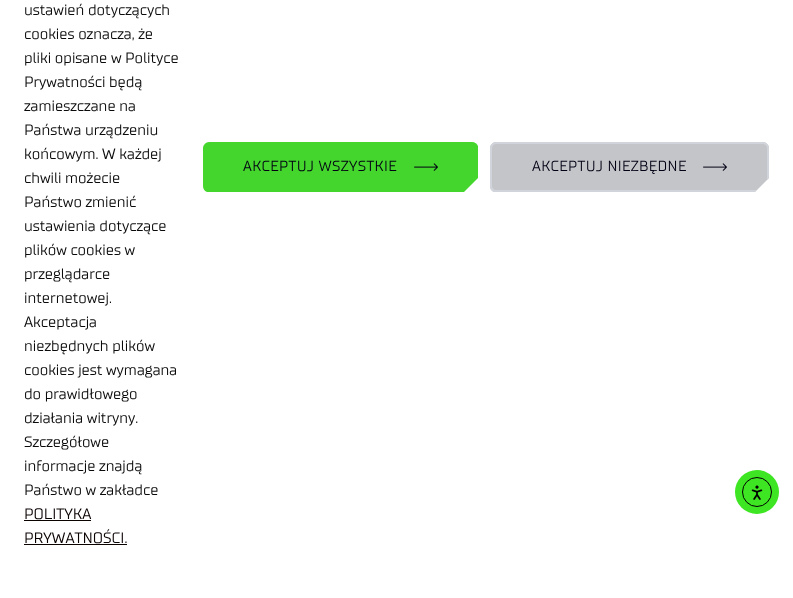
<svg xmlns="http://www.w3.org/2000/svg" width="793" height="598">
<rect width="100%" height="100%" fill="#fff"/>
<text x="24" y="15" style="font-family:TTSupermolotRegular;font-size:15px;fill:#0a0a0a">ustawień dotyczących</text>
<text x="24" y="39" style="font-family:TTSupermolotRegular;font-size:15px;fill:#0a0a0a">cookies oznacza, że</text>
<text x="24" y="63" style="font-family:TTSupermolotRegular;font-size:15px;fill:#0a0a0a">pliki opisane w Polityce</text>
<text x="24" y="87" style="font-family:TTSupermolotRegular;font-size:15px;fill:#0a0a0a">Prywatności będą</text>
<text x="24" y="111" style="font-family:TTSupermolotRegular;font-size:15px;fill:#0a0a0a">zamieszczane na</text>
<text x="24" y="135" style="font-family:TTSupermolotRegular;font-size:15px;fill:#0a0a0a">Państwa urządzeniu</text>
<text x="24" y="159" style="font-family:TTSupermolotRegular;font-size:15px;fill:#0a0a0a">końcowym. W każdej</text>
<text x="24" y="183" style="font-family:TTSupermolotRegular;font-size:15px;fill:#0a0a0a">chwili możecie</text>
<text x="24" y="207" style="font-family:TTSupermolotRegular;font-size:15px;fill:#0a0a0a">Państwo zmienić</text>
<text x="24" y="231" style="font-family:TTSupermolotRegular;font-size:15px;fill:#0a0a0a">ustawienia dotyczące</text>
<text x="24" y="255" style="font-family:TTSupermolotRegular;font-size:15px;fill:#0a0a0a">plików cookies w</text>
<text x="24" y="279" style="font-family:TTSupermolotRegular;font-size:15px;fill:#0a0a0a">przeglądarce</text>
<text x="24" y="303" style="font-family:TTSupermolotRegular;font-size:15px;fill:#0a0a0a">internetowej.</text>
<text x="24" y="327" style="font-family:TTSupermolotRegular;font-size:15px;fill:#0a0a0a">Akceptacja</text>
<text x="24" y="351" style="font-family:TTSupermolotRegular;font-size:15px;fill:#0a0a0a">niezbędnych plików</text>
<text x="24" y="375" style="font-family:TTSupermolotRegular;font-size:15px;fill:#0a0a0a">cookies jest wymagana</text>
<text x="24" y="399" style="font-family:TTSupermolotRegular;font-size:15px;fill:#0a0a0a">do prawidłowego</text>
<text x="24" y="423" style="font-family:TTSupermolotRegular;font-size:15px;fill:#0a0a0a">działania witryny.</text>
<text x="24" y="447" style="font-family:TTSupermolotRegular;font-size:15px;fill:#0a0a0a">Szczegółowe</text>
<text x="24" y="471" style="font-family:TTSupermolotRegular;font-size:15px;fill:#0a0a0a">informacje znajdą</text>
<text x="24" y="495" style="font-family:TTSupermolotRegular;font-size:15px;fill:#0a0a0a">Państwo w zakładce</text>
<text x="24" y="519" style="font-family:TTSupermolotRegular;font-size:15px;fill:#0a0101">POLITYKA</text>
<rect x="24" y="520" width="67" height="1" fill="#0a0101"/>
<text x="24" y="543" style="font-family:TTSupermolotRegular;font-size:15px;fill:#0a0101">PRYWATNOŚCI.</text>
<rect x="24" y="544" width="103" height="1" fill="#0a0101"/>
<path d="M209 142h263c3 0 5 2 6 4v32l-14 14h-257c-3-1-4-4-4-6v-38c0-3 3-6 6-6z" fill="#44d62c"/>
<text x="243" y="171" style="font-family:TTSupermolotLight;font-size:14px;font-weight:bold;letter-spacing:0.8px;fill:#030014">AKCEPTUJ WSZYSTKIE</text>
<image x="414" y="163" width="24" height="8" href="media/1.png"/>
<path d="M496 142c-3 0-6 3-6 6v38c0 2 1 5 4 6h261l14-14v-30c0-3-3-6-6-6z" fill="#c4c5c9"/>
<path d="M496 142c-3 0-6 3-6 6v38c0 2 1 5 4 6h261l1-2h-260c-2 0-4-2-4-4v-38c0-2 2-4 4-4h267c2 0 4 2 4 4v32l2-2v-30c0-3-3-6-6-6z" fill="#d1d5db"/>
<text x="532" y="171" style="font-family:TTSupermolotLight;font-size:14px;font-weight:bold;letter-spacing:0.8px;fill:#030014">AKCEPTUJ NIEZBĘDNE</text>
<image x="703" y="163" width="24" height="8" href="media/2.png"/>
<circle cx="757" cy="492" r="22" fill="#3ee522"/>
<circle cx="757" cy="492" r="14.5" fill="none" stroke="#000"/>
<image x="751" y="485" width="12" height="15" href="media/3.png"/>
</svg>
